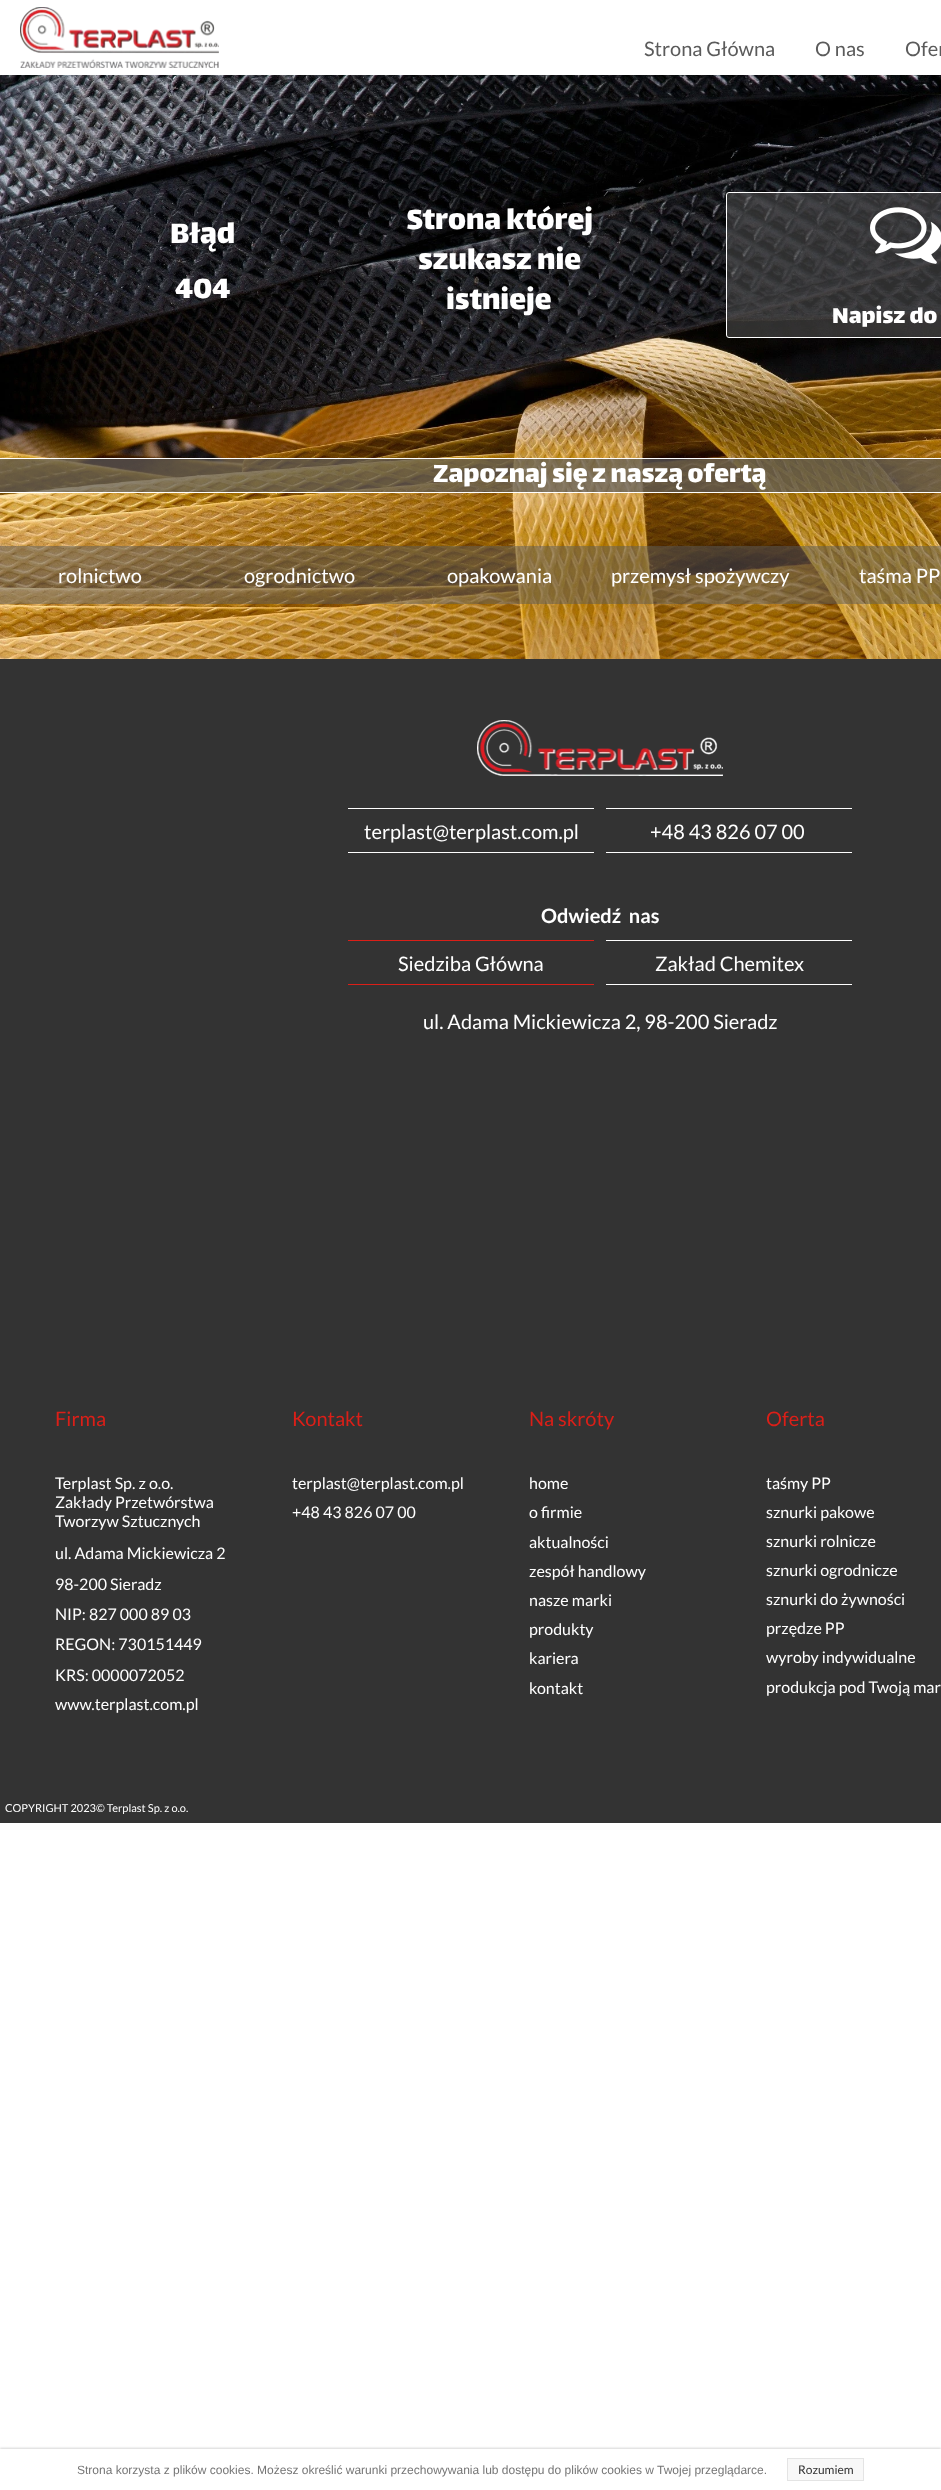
<svg xmlns="http://www.w3.org/2000/svg" width="941" height="2490">
<defs>
<clipPath id="clip1"><rect x="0" y="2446" width="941" height="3"/></clipPath>
</defs>
<rect width="100%" height="100%" fill="#fff"/>
<image x="20" y="7" width="199" height="61" href="media/1.png"/>
<text x="644" y="56" style="font-family:Lato;font-size:20px;fill:#5b5b5b">Strona Główna</text>
<text x="815" y="56" style="font-family:Lato;font-size:20px;fill:#5b5b5b">O nas</text>
<text x="905" y="56" style="font-family:Lato;font-size:20px;fill:#5b5b5b">Ofer</text>
<image x="0" y="75" width="941" height="584" href="media/2.png"/>
<text x="170" y="243" style="font-family:Lalezar;font-size:34px;fill:#fff">Błąd</text>
<text x="175" y="298" style="font-family:Lalezar;font-size:34px;fill:#fff">404</text>
<text x="406" y="229" style="font-family:Lalezar;font-size:34px;fill:#fff">Strona której</text>
<text x="418" y="269" style="font-family:Lalezar;font-size:34px;fill:#fff">szukasz nie</text>
<text x="446" y="309" style="font-family:Lalezar;font-size:34px;fill:#fff">istnieje</text>
<rect x="726.5" y="192.5" width="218" height="145" rx="2.5" fill="#5b5b5b80" stroke="#fff"/>
<image x="870" y="207" width="71" height="57" href="media/3.png"/>
<text x="832" y="323" style="font-family:Lalezar;font-size:26px;fill:#fff">Napisz do</text>
<rect y="459" width="941" height="33" fill="#5b5b5bb3"/>
<rect y="458" width="941" height="1" fill="#fff"/>
<rect y="492" width="941" height="1" fill="#fff"/>
<text x="433" y="482" style="font-family:Lalezar;font-size:30px;fill:#fff">Zapoznaj się z naszą ofertą</text>
<rect y="546" width="941" height="58" fill="#5b5b5b80"/>
<text x="58" y="583" style="font-family:Lato;font-size:20px;fill:#fff">rolnictwo</text>
<text x="244" y="583" style="font-family:Lato;font-size:20px;fill:#fff">ogrodnictwo</text>
<text x="447" y="583" style="font-family:Lato;font-size:20px;fill:#fff">opakowania</text>
<text x="611" y="583" style="font-family:Lato;font-size:20px;fill:#fff">przemysł spożywczy</text>
<text x="859" y="583" style="font-family:Lato;font-size:20px;fill:#fff">taśma PP</text>
<rect y="659" width="941" height="1164" fill="#333"/>
<image x="477" y="720" width="246" height="56" href="media/4.png"/>
<rect x="348" y="808" width="246" height="1" fill="#fff"/>
<rect x="348" y="852" width="246" height="1" fill="#fff"/>
<text x="364" y="839" style="font-family:Lato;font-size:20px;fill:#fff">terplast@terplast.com.pl</text>
<rect x="606" y="808" width="246" height="1" fill="#fff"/>
<rect x="606" y="852" width="246" height="1" fill="#fff"/>
<text x="650" y="839" style="font-family:Lato;font-size:20px;fill:#fff">+48 43 826 07 00</text>
<text x="541" y="923" style="font-family:Lato;font-size:20px;font-weight:bold;fill:#fff" xml:space="preserve">Odwiedź  nas</text>
<rect x="348" y="940" width="246" height="1" fill="#db1f18"/>
<rect x="348" y="984" width="246" height="1" fill="#db1f18"/>
<text x="398" y="971" style="font-family:Lato;font-size:20px;fill:#fff">Siedziba Główna</text>
<rect x="606" y="940" width="246" height="1" fill="#fff"/>
<rect x="606" y="984" width="246" height="1" fill="#fff"/>
<text x="655" y="971" style="font-family:Lato;font-size:20px;fill:#fff">Zakład Chemitex</text>
<text x="423" y="1029" style="font-family:Lato;font-size:20px;fill:#fff">ul. Adama Mickiewicza 2, 98-200 Sieradz</text>
<text x="55" y="1426" style="font-family:Lato;font-size:20px;fill:#db1f18">Firma</text>
<text x="292" y="1426" style="font-family:Lato;font-size:20px;fill:#db1f18">Kontakt</text>
<text x="529" y="1426" style="font-family:Lato;font-size:20px;fill:#db1f18">Na skróty</text>
<text x="766" y="1426" style="font-family:Lato;font-size:20px;fill:#db1f18">Oferta</text>
<text x="55" y="1489" style="font-family:Lato;font-size:16px;fill:#fff">Terplast Sp. z o.o.</text>
<text x="55" y="1508" style="font-family:Lato;font-size:16px;fill:#fff">Zakłady Przetwórstwa</text>
<text x="55" y="1527" style="font-family:Lato;font-size:16px;fill:#fff">Tworzyw Sztucznych</text>
<text x="292" y="1489" style="font-family:Lato;font-size:16px;fill:#fff">terplast@terplast.com.pl</text>
<text x="529" y="1489" style="font-family:Lato;font-size:16px;fill:#fff">home</text>
<text x="766" y="1489" style="font-family:Lato;font-size:16px;fill:#fff">taśmy PP</text>
<text x="292" y="1518" style="font-family:Lato;font-size:16px;fill:#fff">+48 43 826 07 00</text>
<text x="529" y="1518" style="font-family:Lato;font-size:16px;fill:#fff">o firmie</text>
<text x="766" y="1518" style="font-family:Lato;font-size:16px;fill:#fff">sznurki pakowe</text>
<text x="529" y="1548" style="font-family:Lato;font-size:16px;fill:#fff">aktualności</text>
<text x="766" y="1547" style="font-family:Lato;font-size:16px;fill:#fff">sznurki rolnicze</text>
<text x="55" y="1559" style="font-family:Lato;font-size:16px;fill:#fff">ul. Adama Mickiewicza 2</text>
<text x="529" y="1577" style="font-family:Lato;font-size:16px;fill:#fff">zespół handlowy</text>
<text x="766" y="1576" style="font-family:Lato;font-size:16px;fill:#fff">sznurki ogrodnicze</text>
<text x="55" y="1590" style="font-family:Lato;font-size:16px;fill:#fff">98-200 Sieradz</text>
<text x="529" y="1606" style="font-family:Lato;font-size:16px;fill:#fff">nasze marki</text>
<text x="766" y="1605" style="font-family:Lato;font-size:16px;fill:#fff">sznurki do żywności</text>
<text x="55" y="1620" style="font-family:Lato;font-size:16px;fill:#fff">NIP: 827 000 89 03</text>
<text x="529" y="1635" style="font-family:Lato;font-size:16px;fill:#fff">produkty</text>
<text x="766" y="1634" style="font-family:Lato;font-size:16px;fill:#fff">przędze PP</text>
<text x="55" y="1650" style="font-family:Lato;font-size:16px;fill:#fff">REGON: 730151449</text>
<text x="529" y="1664" style="font-family:Lato;font-size:16px;fill:#fff">kariera</text>
<text x="766" y="1663" style="font-family:Lato;font-size:16px;fill:#fff">wyroby indywidualne</text>
<text x="55" y="1681" style="font-family:Lato;font-size:16px;fill:#fff">KRS: 0000072052</text>
<text x="529" y="1694" style="font-family:Lato;font-size:16px;fill:#fff">kontakt</text>
<text x="766" y="1693" style="font-family:Lato;font-size:16px;fill:#fff">produkcja pod Twoją mar</text>
<text x="55" y="1710" style="font-family:Lato;font-size:16px;fill:#fff">www.terplast.com.pl</text>
<text x="5" y="1812" style="font-family:Lato;font-size:11px;fill:#fff">COPYRIGHT 2023© Terplast Sp. z o.o.</text>
<g clip-path="url(#clip1)">
<rect y="2448" width="941" height="41" fill="#d6d6d6" filter="blur(1px)"/>
</g>
<text x="77" y="2474" style="font-family:Liberation Sans;font-size:12px;fill:#767676">Strona korzysta z plików cookies. Możesz określić warunki przechowywania lub dostępu do plików cookies w Twojej przeglądarce.</text>
<rect x="787.5" y="2458.5" width="76" height="22" fill="#f8f8f8" stroke="#e4e4e4"/>
<text x="798" y="2474" style="font-family:Lato;font-size:12px;fill:#333">Rozumiem</text>
</svg>
